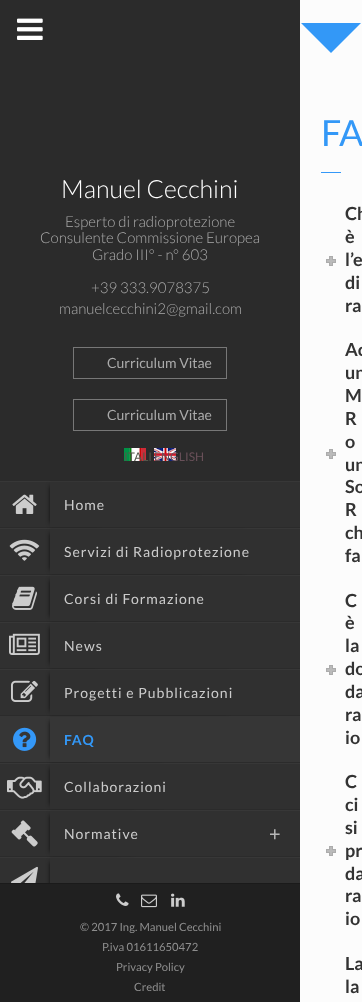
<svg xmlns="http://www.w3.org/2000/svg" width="362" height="1002">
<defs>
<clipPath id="clip1"><path d="M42 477h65v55h-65zm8 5h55v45h-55z" clip-rule="evenodd"/></clipPath>
<clipPath id="clip2"><path d="M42 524h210v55h-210zm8 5h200v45h-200z" clip-rule="evenodd"/></clipPath>
<clipPath id="clip3"><path d="M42 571h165v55h-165zm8 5h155v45h-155z" clip-rule="evenodd"/></clipPath>
<clipPath id="clip4"><path d="M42 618h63v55h-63zm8 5h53v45h-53z" clip-rule="evenodd"/></clipPath>
<clipPath id="clip5"><path d="M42 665h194v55h-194zm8 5h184v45h-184z" clip-rule="evenodd"/></clipPath>
<clipPath id="clip6"><path d="M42 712h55v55h-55zm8 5h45v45h-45z" clip-rule="evenodd"/></clipPath>
<clipPath id="clip7"><path d="M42 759h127v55h-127zm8 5h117v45h-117z" clip-rule="evenodd"/></clipPath>
<clipPath id="clip8"><path d="M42 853h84v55h-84zm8 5h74v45h-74z" clip-rule="evenodd"/></clipPath>
<clipPath id="clip9"><path d="M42 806h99v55h-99zm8 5h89v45h-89z" clip-rule="evenodd"/></clipPath>
</defs>
<rect width="100%" height="100%" fill="#2b2b2b"/>
<image x="17" y="18" width="26" height="22" href="media/1.png"/>
<text x="61" y="198" style="font-family:Lato;font-size:25px;font-weight:300;fill:#fff">Manuel Cecchini</text>
<text x="65" y="227" style="font-family:Lato;font-size:15px;font-weight:300;fill:#aaa">Esperto di radioprotezione</text>
<text x="40" y="243" style="font-family:Lato;font-size:15px;font-weight:300;fill:#aaa">Consulente Commissione Europea</text>
<text x="92" y="260" style="font-family:Lato;font-size:15px;font-weight:300;fill:#aaa">Grado III° - n° 603</text>
<text x="91" y="293" style="font-family:Lato;font-size:15px;font-weight:300;fill:#aaa">+39 333.9078375</text>
<text x="59" y="314" style="font-family:Lato;font-size:15px;font-weight:300;fill:#aaa">manuelcecchini2@gmail.com</text>
<rect x="73.5" y="347.5" width="153" height="31" fill="none" stroke="#777"/>
<text x="107" y="368" style="font-family:Lato;font-size:14px;fill:#aaa">Curriculum Vitae</text>
<rect x="73.5" y="399.5" width="153" height="31" fill="none" stroke="#777"/>
<text x="107" y="420" style="font-family:Lato;font-size:14px;fill:#aaa">Curriculum Vitae</text>
<image x="124" y="448" width="22" height="13" href="media/2.png"/>
<text x="124" y="461" style="font-family:Lato;font-size:12px;fill:#56564b">ITALI</text>
<image x="154" y="448" width="22" height="13" href="media/3.png"/>
<text x="154" y="461" style="font-family:Lato;font-size:12px;fill:#695059">ENGLISH</text>
<rect y="482" width="300" height="45" fill="#303030"/>
<rect y="481" width="300" height="1" fill="#373737"/>
<image x="12" y="494" width="25" height="20" href="media/4.png"/>
<rect y="529" width="300" height="45" fill="#303030"/>
<rect y="528" width="300" height="1" fill="#373737"/>
<g clip-path="url(#clip1)">
<rect x="51" y="486" width="47" height="37" fill="#000" filter="blur(2.5px)"/>
</g>
<text x="64" y="510" style="font-family:Lato;font-size:14px;letter-spacing:1px;fill:#ccc">Home</text>
<image x="9" y="539" width="31" height="22" href="media/5.png"/>
<rect y="576" width="300" height="45" fill="#303030"/>
<rect y="575" width="300" height="1" fill="#373737"/>
<g clip-path="url(#clip2)">
<rect x="51" y="533" width="192" height="37" fill="#000" filter="blur(2.5px)"/>
</g>
<text x="64" y="557" style="font-family:Lato;font-size:14px;letter-spacing:1px;fill:#ccc">Servizi di Radioprotezione</text>
<image x="12" y="586" width="25" height="24" href="media/6.png"/>
<rect y="623" width="300" height="45" fill="#303030"/>
<rect y="622" width="300" height="1" fill="#373737"/>
<g clip-path="url(#clip3)">
<rect x="51" y="580" width="147" height="37" fill="#000" filter="blur(2.5px)"/>
</g>
<text x="64" y="604" style="font-family:Lato;font-size:14px;letter-spacing:1px;fill:#ccc">Corsi di Formazione</text>
<image x="9" y="633" width="31" height="22" href="media/7.png"/>
<rect y="670" width="300" height="45" fill="#303030"/>
<rect y="669" width="300" height="1" fill="#373737"/>
<g clip-path="url(#clip4)">
<rect x="51" y="627" width="45" height="37" fill="#000" filter="blur(2.5px)"/>
</g>
<text x="64" y="651" style="font-family:Lato;font-size:14px;letter-spacing:1px;fill:#ccc">News</text>
<image x="11" y="680" width="27" height="22" href="media/8.png"/>
<rect y="716" width="300" height="46" fill="#363636"/>
<g clip-path="url(#clip5)">
<rect x="51" y="674" width="176" height="37" fill="#000" filter="blur(2.5px)"/>
</g>
<text x="64" y="698" style="font-family:Lato;font-size:14px;letter-spacing:1px;fill:#ccc">Progetti e Pubblicazioni</text>
<image x="13" y="727" width="24" height="24" href="media/9.png"/>
<rect y="764" width="300" height="45" fill="#303030"/>
<rect y="763" width="300" height="1" fill="#373737"/>
<g clip-path="url(#clip6)">
<rect x="51" y="721" width="37" height="37" fill="#000" filter="blur(2.5px)"/>
</g>
<text x="64" y="745" style="font-family:Lato;font-size:14px;font-weight:bold;letter-spacing:1px;fill:#3398f7">FAQ</text>
<image x="7" y="776" width="35" height="23" href="media/10.png"/>
<g clip-path="url(#clip7)">
<rect x="51" y="768" width="109" height="37" fill="#000" filter="blur(2.5px)"/>
</g>
<text x="64" y="792" style="font-family:Lato;font-size:14px;letter-spacing:1px;fill:#ccc">Collaborazioni</text>
<rect y="858" width="300" height="25" fill="#303030"/>
<rect y="857" width="300" height="1" fill="#373737"/>
<g clip-path="url(#clip8)">
<rect x="51" y="862" width="66" height="37" fill="#000" filter="blur(2.5px)"/>
</g>
<rect y="811" width="300" height="45" fill="#303030"/>
<rect y="810" width="300" height="1" fill="#373737"/>
<image x="11" y="820" width="27" height="27" href="media/11.png"/>
<g clip-path="url(#clip9)">
<rect x="51" y="815" width="81" height="37" fill="#000" filter="blur(2.5px)"/>
</g>
<text x="64" y="839" style="font-family:Lato;font-size:14px;letter-spacing:1px;fill:#ccc">Normative</text>
<text x="269" y="841" style="font-family:Lato;font-size:20px;fill:#b7b7b7">+</text>
<image x="11" y="866" width="27" height="17" href="media/12.png"/>
<rect y="884" width="300" height="118" fill="#202020"/>
<rect y="883" width="300" height="1" fill="#1a1a1a"/>
<image x="116" y="893" width="13" height="13" href="media/13.png"/>
<image x="141" y="894" width="16" height="14" href="media/14.png"/>
<image x="171" y="893" width="14" height="14" href="media/15.png"/>
<text x="80" y="931" style="font-family:Lato;font-size:11.25px;fill:#8e8e8e">© 2017 Ing. Manuel Cecchini</text>
<text x="102" y="951" style="font-family:Lato;font-size:11.25px;fill:#8e8e8e">P.iva 01611650472</text>
<text x="116" y="971" style="font-family:Lato;font-size:11.25px;fill:#8e8e8e">Privacy Policy</text>
<text x="134" y="991" style="font-family:Lato;font-size:11.25px;fill:#8e8e8e">Credit</text>
<rect x="300" width="62" height="1002" fill="#fcfcfc"/>
<path d="M301 23h60l-30 30z" fill="#3398f7"/>
<rect x="321" y="172" width="20" height="1" fill="#3498f8"/>
<text x="321" y="146" style="font-family:Lato;font-size:36px;fill:#3398f7">FA</text>
<text x="345" y="220" style="font-family:Lato;font-size:18px;font-weight:bold;fill:#333">Ch</text>
<text x="345" y="243" style="font-family:Lato;font-size:18px;font-weight:bold;fill:#333">è</text>
<rect x="326.5" y="259.5" width="9" height="3" fill="none" stroke="#acacac"/>
<rect x="329.5" y="256.5" width="3" height="9" fill="#bababa" stroke="#acacac"/>
<rect x="327" y="260" width="8" height="2" fill="#bababa"/>
<text x="345" y="266" style="font-family:Lato;font-size:18px;font-weight:bold;fill:#333">l’e</text>
<text x="345" y="289" style="font-family:Lato;font-size:18px;font-weight:bold;fill:#333">di</text>
<text x="345" y="312" style="font-family:Lato;font-size:18px;font-weight:bold;fill:#333">ra</text>
<text x="345" y="356" style="font-family:Lato;font-size:18px;font-weight:bold;fill:#333">Ac</text>
<text x="345" y="379" style="font-family:Lato;font-size:18px;font-weight:bold;fill:#333">un</text>
<text x="345" y="402" style="font-family:Lato;font-size:18px;font-weight:bold;fill:#333">M</text>
<text x="345" y="425" style="font-family:Lato;font-size:18px;font-weight:bold;fill:#333">R</text>
<text x="345" y="448" style="font-family:Lato;font-size:18px;font-weight:bold;fill:#333">o</text>
<rect x="326.5" y="452.5" width="9" height="3" fill="none" stroke="#acacac"/>
<rect x="329.5" y="449.5" width="3" height="9" fill="#bababa" stroke="#acacac"/>
<rect x="327" y="453" width="8" height="2" fill="#bababa"/>
<text x="345" y="471" style="font-family:Lato;font-size:18px;font-weight:bold;fill:#333">un</text>
<text x="345" y="493" style="font-family:Lato;font-size:18px;font-weight:bold;fill:#333">So</text>
<text x="345" y="516" style="font-family:Lato;font-size:18px;font-weight:bold;fill:#333">R</text>
<text x="345" y="539" style="font-family:Lato;font-size:18px;font-weight:bold;fill:#333">ch</text>
<text x="345" y="562" style="font-family:Lato;font-size:18px;font-weight:bold;fill:#333">fa</text>
<text x="345" y="607" style="font-family:Lato;font-size:18px;font-weight:bold;fill:#333">C</text>
<text x="345" y="629" style="font-family:Lato;font-size:18px;font-weight:bold;fill:#333">è</text>
<text x="345" y="652" style="font-family:Lato;font-size:18px;font-weight:bold;fill:#333">la</text>
<rect x="326.5" y="668.5" width="9" height="3" fill="none" stroke="#acacac"/>
<rect x="329.5" y="665.5" width="3" height="9" fill="#bababa" stroke="#acacac"/>
<rect x="327" y="669" width="8" height="2" fill="#bababa"/>
<text x="345" y="675" style="font-family:Lato;font-size:18px;font-weight:bold;fill:#333">do</text>
<text x="345" y="698" style="font-family:Lato;font-size:18px;font-weight:bold;fill:#333">da</text>
<text x="345" y="721" style="font-family:Lato;font-size:18px;font-weight:bold;fill:#333">ra</text>
<text x="345" y="744" style="font-family:Lato;font-size:18px;font-weight:bold;fill:#333">io</text>
<text x="345" y="788" style="font-family:Lato;font-size:18px;font-weight:bold;fill:#333">C</text>
<text x="345" y="811" style="font-family:Lato;font-size:18px;font-weight:bold;fill:#333">ci</text>
<text x="345" y="834" style="font-family:Lato;font-size:18px;font-weight:bold;fill:#333">si</text>
<rect x="326.5" y="849.5" width="9" height="3" fill="none" stroke="#acacac"/>
<rect x="329.5" y="846.5" width="3" height="9" fill="#bababa" stroke="#acacac"/>
<rect x="327" y="850" width="8" height="2" fill="#bababa"/>
<text x="345" y="857" style="font-family:Lato;font-size:18px;font-weight:bold;fill:#333">pr</text>
<text x="345" y="880" style="font-family:Lato;font-size:18px;font-weight:bold;fill:#333">da</text>
<text x="345" y="902" style="font-family:Lato;font-size:18px;font-weight:bold;fill:#333">ra</text>
<text x="345" y="925" style="font-family:Lato;font-size:18px;font-weight:bold;fill:#333">io</text>
<text x="345" y="970" style="font-family:Lato;font-size:18px;font-weight:bold;fill:#333">La</text>
<text x="345" y="993" style="font-family:Lato;font-size:18px;font-weight:bold;fill:#333">la</text>
</svg>
